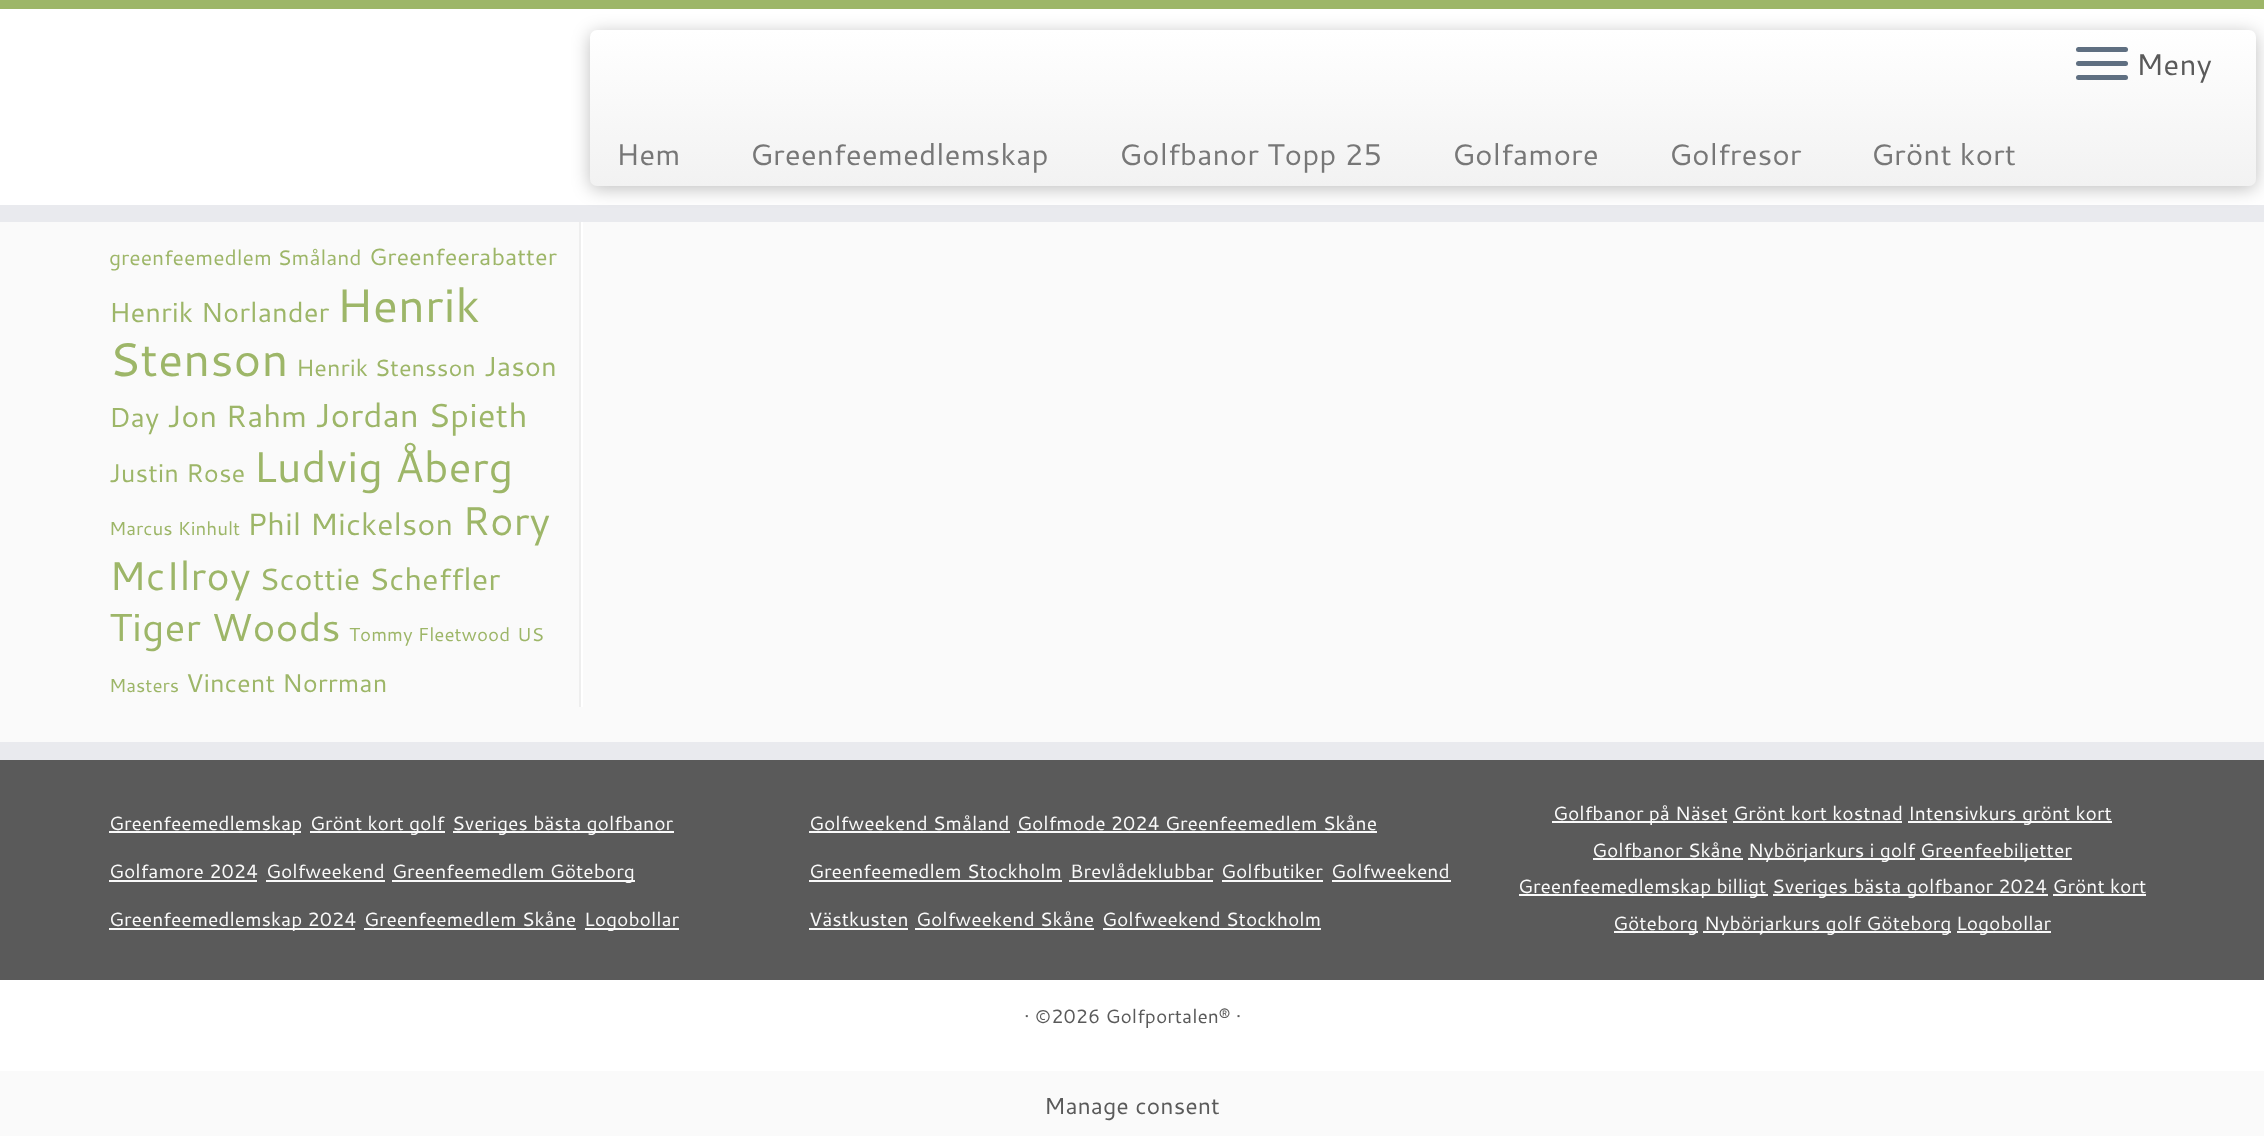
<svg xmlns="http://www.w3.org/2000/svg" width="2264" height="1136">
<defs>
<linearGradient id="g1" gradientUnits="userSpaceOnUse" x1="1423" y1="30" x2="1423" y2="186"><stop offset="0" stop-color="#fff"/><stop offset="1" stop-color="#f2f2f2"/></linearGradient>
</defs>
<rect width="100%" height="100%" fill="#fafafa"/>
<rect y="9" width="2264" height="196" fill="#fff"/>
<rect width="2264" height="9" fill="#9db668"/>
<rect y="205" width="2264" height="17" fill="#e9eaee"/>
<rect x="590" y="33" width="1666" height="156" rx="7" fill="#00000040" filter="blur(9px)"/>
<rect x="590" y="30" width="1666" height="156" rx="7" fill="url(#g1)"/>
<rect x="2076" y="47" width="52" height="5" rx="2.5" fill="#5f6f81"/>
<rect x="2076" y="61" width="52" height="5" rx="2.5" fill="#5f6f81"/>
<rect x="2076" y="75" width="52" height="5" rx="2.5" fill="#5f6f81"/>
<text x="2136" y="75" style="font-family:Cantarell;font-size:29.75px;fill:#5a5a5a">Meny</text>
<text x="616" y="165" style="font-family:Cantarell;font-size:29.75px;fill:#777">Hem</text>
<text x="750" y="165" style="font-family:Cantarell;font-size:29.75px;fill:#777">Greenfeemedlemskap</text>
<text x="1119" y="165" style="font-family:Cantarell;font-size:29.75px;fill:#777">Golfbanor Topp 25</text>
<text x="1452" y="165" style="font-family:Cantarell;font-size:29.75px;fill:#777">Golfamore</text>
<text x="1669" y="165" style="font-family:Cantarell;font-size:29.75px;fill:#777">Golfresor</text>
<text x="1871" y="165" style="font-family:Cantarell;font-size:29.75px;fill:#777">Grönt kort</text>
<rect x="579" y="222" width="2" height="485" fill="#eee"/>
<text x="109" y="265" style="font-family:Cantarell;font-size:21.1px;fill:#9db668">greenfeemedlem Småland</text>
<text x="369" y="265" style="font-family:Cantarell;font-size:23.5px;fill:#9db668">Greenfeerabatter</text>
<text x="109" y="322" style="font-family:Cantarell;font-size:27.5px;fill:#9db668">Henrik Norlander</text>
<text x="336" y="322" style="font-family:Cantarell;font-size:47px;fill:#9db668">Henrik</text>
<text x="109" y="376" style="font-family:Cantarell;font-size:47px;fill:#9db668">Stenson</text>
<text x="296" y="376" style="font-family:Cantarell;font-size:23.5px;fill:#9db668">Henrik Stensson</text>
<text x="484" y="376" style="font-family:Cantarell;font-size:27.5px;fill:#9db668">Jason</text>
<text x="109" y="427" style="font-family:Cantarell;font-size:27.5px;fill:#9db668">Day</text>
<text x="167" y="427" style="font-family:Cantarell;font-size:30.75px;fill:#9db668">Jon Rahm</text>
<text x="315" y="427" style="font-family:Cantarell;font-size:33.25px;fill:#9db668">Jordan Spieth</text>
<text x="109" y="482" style="font-family:Cantarell;font-size:25.5px;fill:#9db668">Justin Rose</text>
<text x="253" y="482" style="font-family:Cantarell;font-size:43px;fill:#9db668">Ludvig Åberg</text>
<text x="109" y="535" style="font-family:Cantarell;font-size:18.75px;fill:#9db668">Marcus Kinhult</text>
<text x="247" y="535" style="font-family:Cantarell;font-size:30.75px;fill:#9db668">Phil Mickelson</text>
<text x="462" y="535" style="font-family:Cantarell;font-size:40px;fill:#9db668">Rory</text>
<text x="109" y="590" style="font-family:Cantarell;font-size:40px;fill:#9db668">McIlroy</text>
<text x="259" y="590" style="font-family:Cantarell;font-size:30.75px;fill:#9db668">Scottie Scheffler</text>
<text x="109" y="641" style="font-family:Cantarell;font-size:39px;fill:#9db668">Tiger Woods</text>
<text x="349" y="641" style="font-family:Cantarell;font-size:18.75px;fill:#9db668">Tommy Fleetwood</text>
<text x="517" y="641" style="font-family:Cantarell;font-size:18.75px;fill:#9db668">US</text>
<text x="109" y="692" style="font-family:Cantarell;font-size:18.75px;fill:#9db668">Masters</text>
<text x="186" y="692" style="font-family:Cantarell;font-size:25.5px;fill:#9db668">Vincent Norrman</text>
<rect x="581" y="222" width="2" height="485" fill="#fff"/>
<rect y="760" width="2264" height="220" fill="#5a5a5a"/>
<rect y="742" width="2264" height="18" fill="#e9eaee"/>
<rect x="109" y="831" width="192" height="2" fill="#fafafa"/>
<text x="109" y="830" style="font-family:Cantarell;font-size:19.25px;fill:#fafafa">Greenfeemedlemskap</text>
<rect x="310" y="831" width="135" height="2" fill="#fafafa"/>
<text x="310" y="830" style="font-family:Cantarell;font-size:19.25px;fill:#fafafa">Grönt kort golf</text>
<rect x="453" y="831" width="221" height="2" fill="#fafafa"/>
<text x="452" y="830" style="font-family:Cantarell;font-size:19.25px;fill:#fafafa">Sveriges bästa golfbanor</text>
<text x="109" y="878" style="font-family:Cantarell;font-size:19.25px;fill:#fafafa">Golfamore 2024</text>
<rect x="109" y="880" width="148" height="2" fill="#fafafa"/>
<text x="266" y="878" style="font-family:Cantarell;font-size:19.25px;fill:#fafafa">Golfweekend</text>
<rect x="266" y="880" width="119" height="2" fill="#fafafa"/>
<rect x="392" y="880" width="243" height="2" fill="#fafafa"/>
<text x="392" y="878" style="font-family:Cantarell;font-size:19.25px;fill:#fafafa">Greenfeemedlem Göteborg</text>
<rect x="109" y="928" width="246" height="2" fill="#fafafa"/>
<text x="109" y="926" style="font-family:Cantarell;font-size:19.25px;fill:#fafafa">Greenfeemedlemskap 2024</text>
<text x="364" y="926" style="font-family:Cantarell;font-size:19.25px;fill:#fafafa">Greenfeemedlem Skåne</text>
<rect x="364" y="928" width="212" height="2" fill="#fafafa"/>
<rect x="585" y="928" width="94" height="2" fill="#fafafa"/>
<text x="584" y="926" style="font-family:Cantarell;font-size:19.25px;fill:#fafafa">Logobollar</text>
<text x="809" y="830" style="font-family:Cantarell;font-size:19.25px;fill:#fafafa">Golfweekend Småland</text>
<rect x="809" y="831" width="201" height="2" fill="#fafafa"/>
<text x="1017" y="830" style="font-family:Cantarell;font-size:19.25px;fill:#fafafa">Golfmode 2024 Greenfeemedlem Skåne</text>
<rect x="1017" y="831" width="360" height="2" fill="#fafafa"/>
<text x="809" y="878" style="font-family:Cantarell;font-size:19.25px;fill:#fafafa">Greenfeemedlem Stockholm</text>
<rect x="809" y="880" width="253" height="2" fill="#fafafa"/>
<text x="1070" y="878" style="font-family:Cantarell;font-size:19.25px;fill:#fafafa">Brevlådeklubbar</text>
<rect x="1069" y="880" width="144" height="2" fill="#fafafa"/>
<text x="1221" y="878" style="font-family:Cantarell;font-size:19.25px;fill:#fafafa">Golfbutiker</text>
<rect x="1222" y="880" width="101" height="2" fill="#fafafa"/>
<text x="1331" y="878" style="font-family:Cantarell;font-size:19.25px;fill:#fafafa">Golfweekend</text>
<rect x="1332" y="880" width="119" height="2" fill="#fafafa"/>
<text x="809" y="926" style="font-family:Cantarell;font-size:19.25px;fill:#fafafa">Västkusten</text>
<rect x="809" y="928" width="99" height="2" fill="#fafafa"/>
<text x="916" y="926" style="font-family:Cantarell;font-size:19.25px;fill:#fafafa">Golfweekend Skåne</text>
<rect x="915" y="928" width="179" height="2" fill="#fafafa"/>
<text x="1102" y="926" style="font-family:Cantarell;font-size:19.25px;fill:#fafafa">Golfweekend Stockholm</text>
<rect x="1103" y="928" width="218" height="2" fill="#fafafa"/>
<rect x="1552" y="821" width="175" height="2" fill="#fafafa"/>
<text x="1553" y="820" style="font-family:Cantarell;font-size:19.25px;fill:#fafafa">Golfbanor på Näset Grönt kort kostnad</text>
<rect x="1908" y="821" width="204" height="2" fill="#fafafa"/>
<text x="1908" y="820" style="font-family:Cantarell;font-size:19.25px;fill:#fafafa">Intensivkurs grönt kort</text>
<rect x="1733" y="821" width="169" height="2" fill="#fafafa"/>
<text x="1592" y="857" style="font-family:Cantarell;font-size:19.25px;fill:#fafafa">Golfbanor Skåne</text>
<rect x="1593" y="858" width="150" height="2" fill="#fafafa"/>
<rect x="1748" y="858" width="167" height="2" fill="#fafafa"/>
<text x="1748" y="857" style="font-family:Cantarell;font-size:19.25px;fill:#fafafa">Nybörjarkurs i golf</text>
<rect x="1920" y="858" width="152" height="2" fill="#fafafa"/>
<text x="1920" y="857" style="font-family:Cantarell;font-size:19.25px;fill:#fafafa">Greenfeebiljetter</text>
<rect x="1519" y="894" width="249" height="2" fill="#fafafa"/>
<text x="1518" y="893" style="font-family:Cantarell;font-size:19.25px;fill:#fafafa">Greenfeemedlemskap billigt</text>
<rect x="1773" y="894" width="275" height="2" fill="#fafafa"/>
<text x="1772" y="893" style="font-family:Cantarell;font-size:19.25px;fill:#fafafa">Sveriges bästa golfbanor 2024 Grönt kort</text>
<rect x="1614" y="931" width="84" height="2" fill="#fafafa"/>
<text x="1613" y="930" style="font-family:Cantarell;font-size:19.25px;fill:#fafafa">Göteborg</text>
<rect x="2053" y="894" width="93" height="2" fill="#fafafa"/>
<rect x="1703" y="931" width="248" height="2" fill="#fafafa"/>
<text x="1704" y="930" style="font-family:Cantarell;font-size:19.25px;fill:#fafafa">Nybörjarkurs golf Göteborg</text>
<rect x="1957" y="931" width="94" height="2" fill="#fafafa"/>
<text x="1956" y="930" style="font-family:Cantarell;font-size:19.25px;fill:#fafafa">Logobollar</text>
<rect y="980" width="2264" height="91" fill="#fff"/>
<text x="1024" y="1023" style="font-family:Cantarell;font-size:19.25px;fill:#5a5a5a">· ©2026 Golfportalen® ·</text>
<text x="1044" y="1114" style="font-family:Cantarell;font-size:23.25px;fill:#5a5a5a">Manage consent</text>
</svg>
